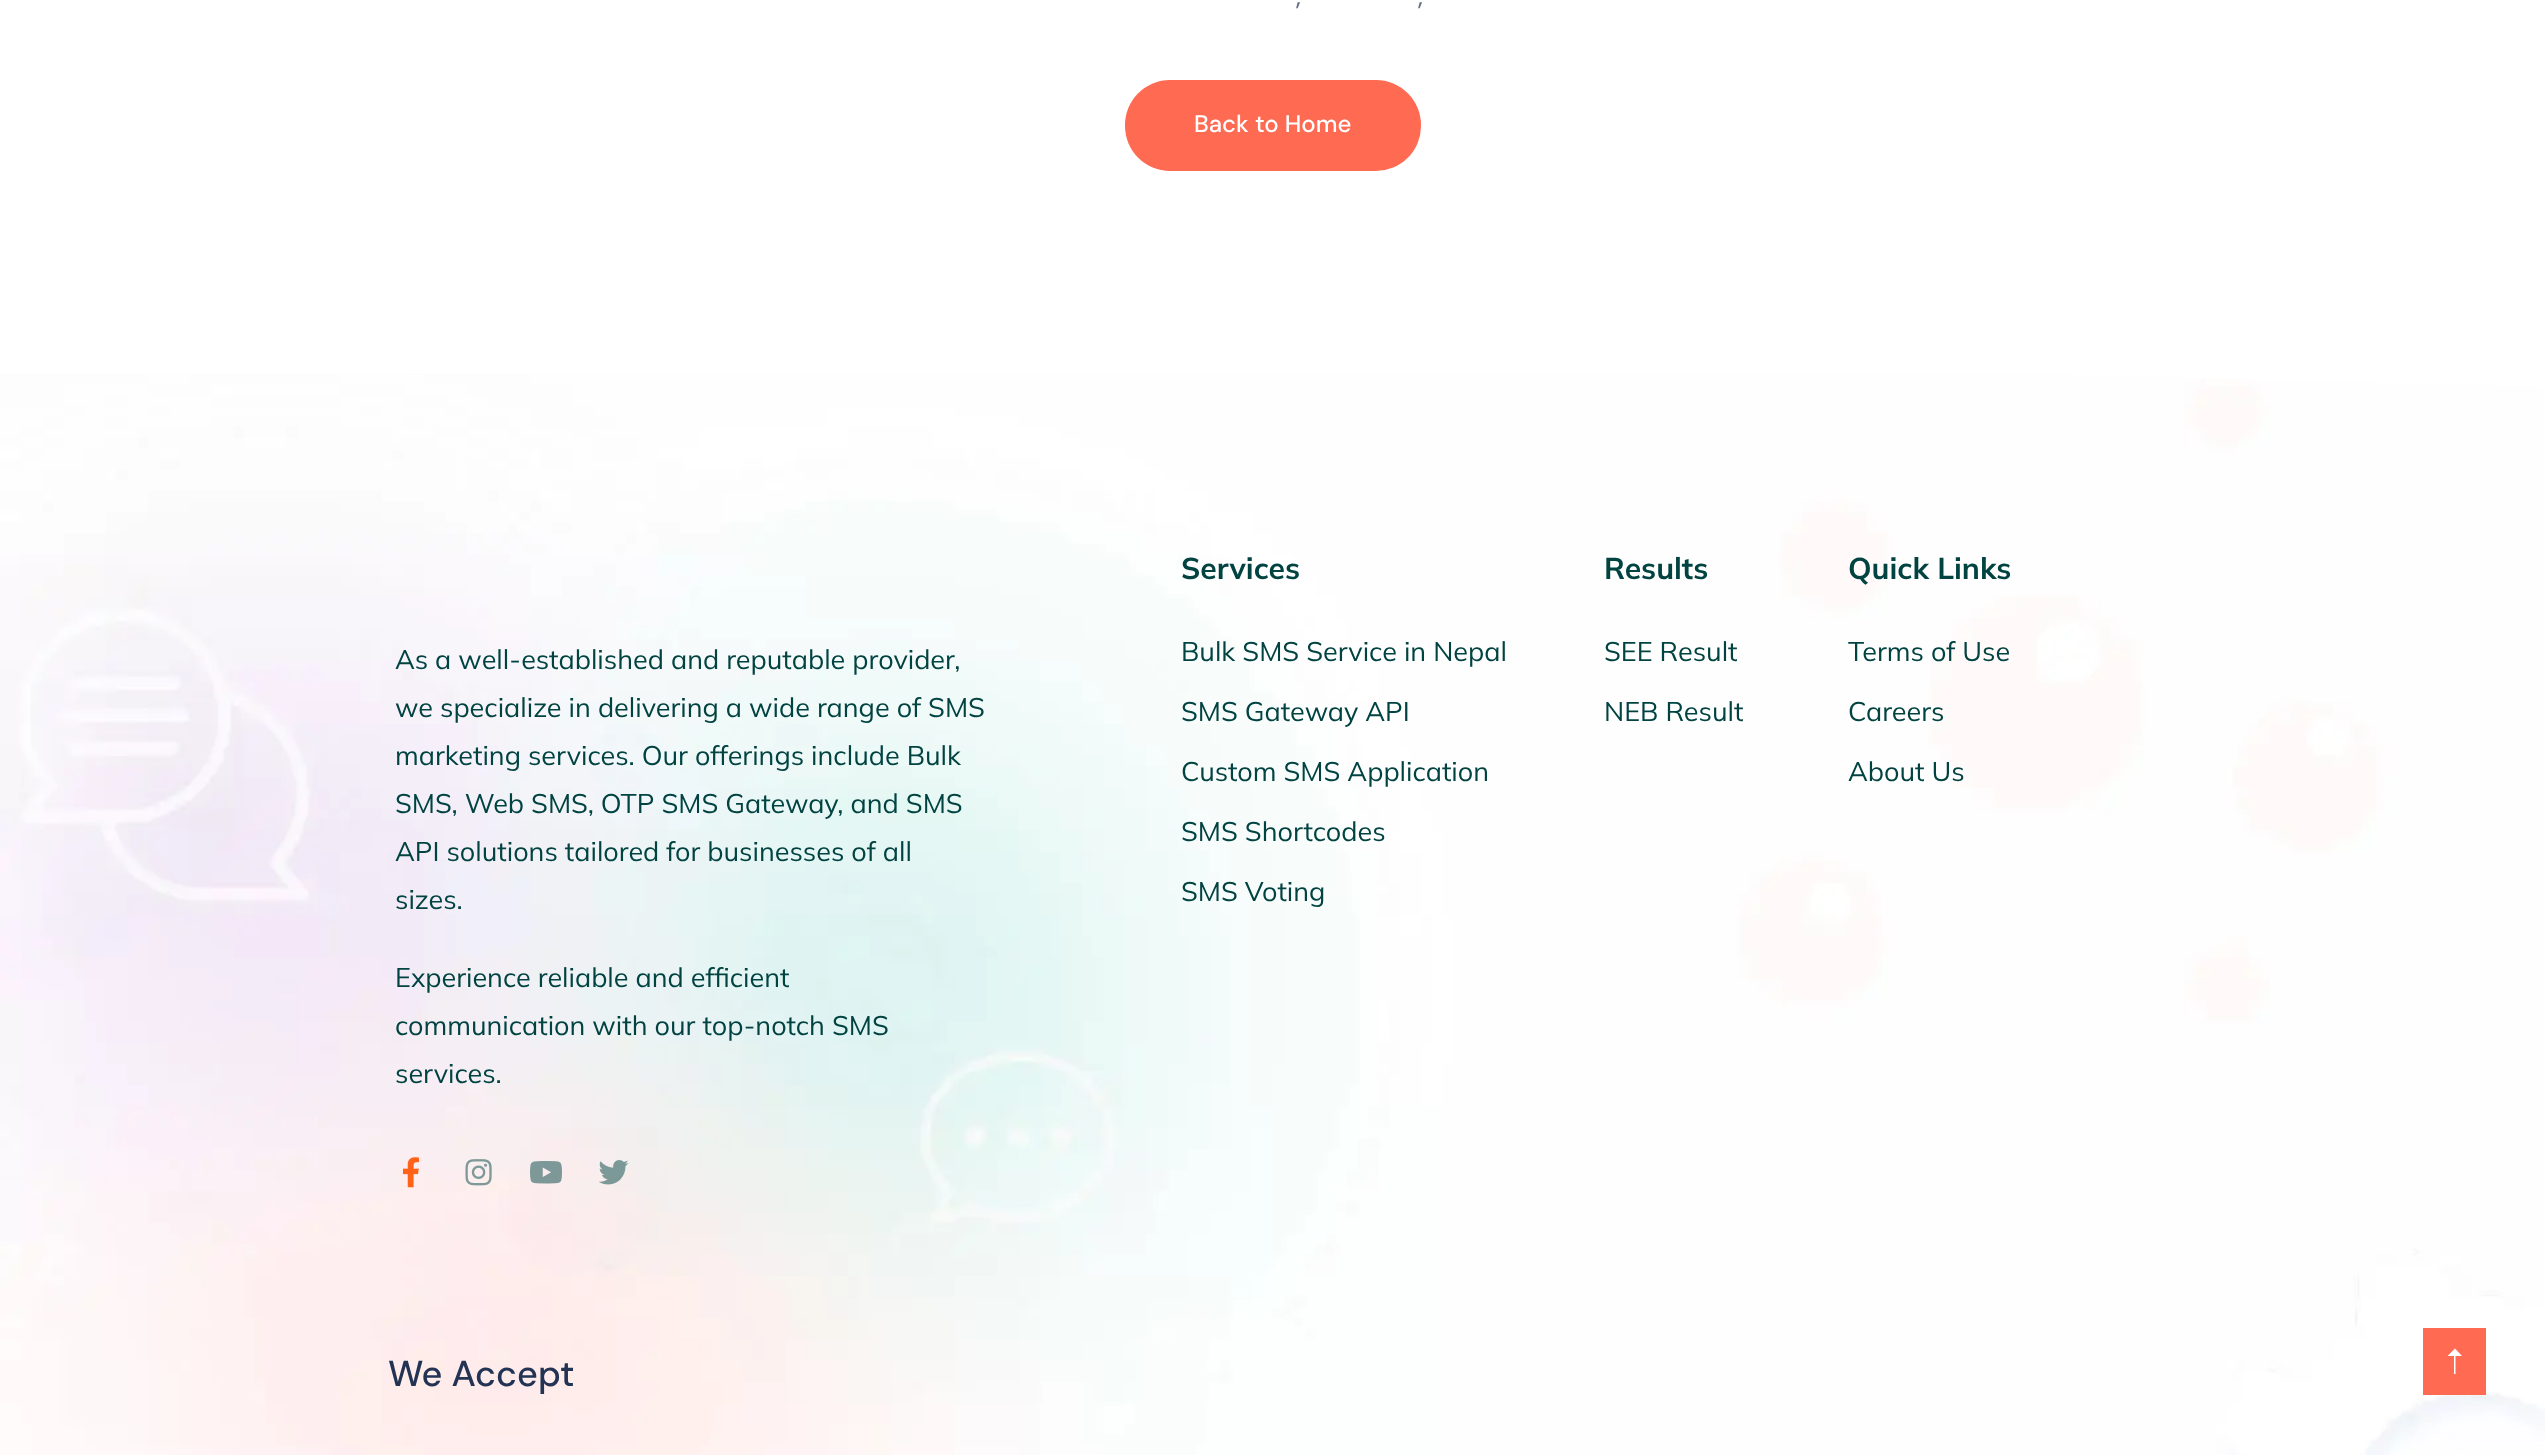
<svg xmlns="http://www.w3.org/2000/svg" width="2545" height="1455">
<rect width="100%" height="100%" fill="#fff"/>
<text x="1296" y="5" style="font-family:DM Sans;font-size:27px;fill:#646e83">,</text>
<text x="1418" y="5" style="font-family:DM Sans;font-size:27px;fill:#646e83">,</text>
<rect x="1125" y="80" width="296" height="91" rx="45" fill="#ff6b52"/>
<text x="1194" y="132" style="font-family:DM Sans;font-size:24px;font-weight:500;fill:#fff">Back to Home</text>
<image x="0" y="373" width="2545" height="1082" href="media/1.png"/>
<path d="M0 320h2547v67z" fill="#fff"/>
<rect x="2206" y="378" width="42" height="9" fill="#ffffff80"/>
<text x="395" y="669" style="font-family:Mulish;font-size:27px;fill:#004341">As a well-established and reputable provider,</text>
<text x="395" y="717" style="font-family:Mulish;font-size:27px;fill:#004341">we specialize in delivering a wide range of SMS</text>
<text x="395" y="765" style="font-family:Mulish;font-size:27px;fill:#004341">marketing services. Our offerings include Bulk</text>
<text x="395" y="813" style="font-family:Mulish;font-size:27px;fill:#004341">SMS, Web SMS, OTP SMS Gateway, and SMS</text>
<text x="395" y="861" style="font-family:Mulish;font-size:27px;fill:#004341">API solutions tailored for businesses of all</text>
<text x="395" y="909" style="font-family:Mulish;font-size:27px;fill:#004341">sizes.</text>
<text x="395" y="987" style="font-family:Mulish;font-size:27px;fill:#004341">Experience reliable and efficient</text>
<text x="395" y="1035" style="font-family:Mulish;font-size:27px;fill:#004341">communication with our top-notch SMS</text>
<text x="395" y="1083" style="font-family:Mulish;font-size:27px;fill:#004341">services.</text>
<image x="402" y="1157" width="18" height="31" href="media/2.png"/>
<image x="465" y="1159" width="27" height="27" href="media/3.png"/>
<image x="530" y="1161" width="32" height="23" href="media/4.png"/>
<image x="598" y="1160" width="31" height="25" href="media/5.png"/>
<text x="1181" y="579" style="font-family:Mulish;font-size:30px;font-weight:bold;fill:#004341">Services</text>
<text x="1181" y="661" style="font-family:Mulish;font-size:27px;fill:#004341">Bulk SMS Service in Nepal</text>
<text x="1181" y="721" style="font-family:Mulish;font-size:27px;fill:#004341">SMS Gateway API</text>
<text x="1181" y="781" style="font-family:Mulish;font-size:27px;fill:#004341">Custom SMS Application</text>
<text x="1181" y="841" style="font-family:Mulish;font-size:27px;fill:#004341">SMS Shortcodes</text>
<text x="1181" y="901" style="font-family:Mulish;font-size:27px;fill:#004341">SMS Voting</text>
<text x="1604" y="579" style="font-family:Mulish;font-size:30px;font-weight:bold;fill:#004341">Results</text>
<text x="1604" y="661" style="font-family:Mulish;font-size:27px;fill:#004341">SEE Result</text>
<text x="1604" y="721" style="font-family:Mulish;font-size:27px;fill:#004341">NEB Result</text>
<text x="1848" y="579" style="font-family:Mulish;font-size:30px;font-weight:bold;fill:#004341">Quick Links</text>
<text x="1848" y="661" style="font-family:Mulish;font-size:27px;fill:#004341">Terms of Use</text>
<text x="1848" y="721" style="font-family:Mulish;font-size:27px;fill:#004341">Careers</text>
<text x="1848" y="781" style="font-family:Mulish;font-size:27px;fill:#004341">About Us</text>
<text x="388" y="1386" style="font-family:DM Sans;font-size:36px;font-weight:500;fill:#223354">We Accept</text>
<rect x="2423" y="1328" width="63" height="67" fill="#ff6b52"/>
<path d="M2462 1356h-6.5v18h-1.5v-18h-6.5l7.5-7.5z" fill="#fff"/>
</svg>
